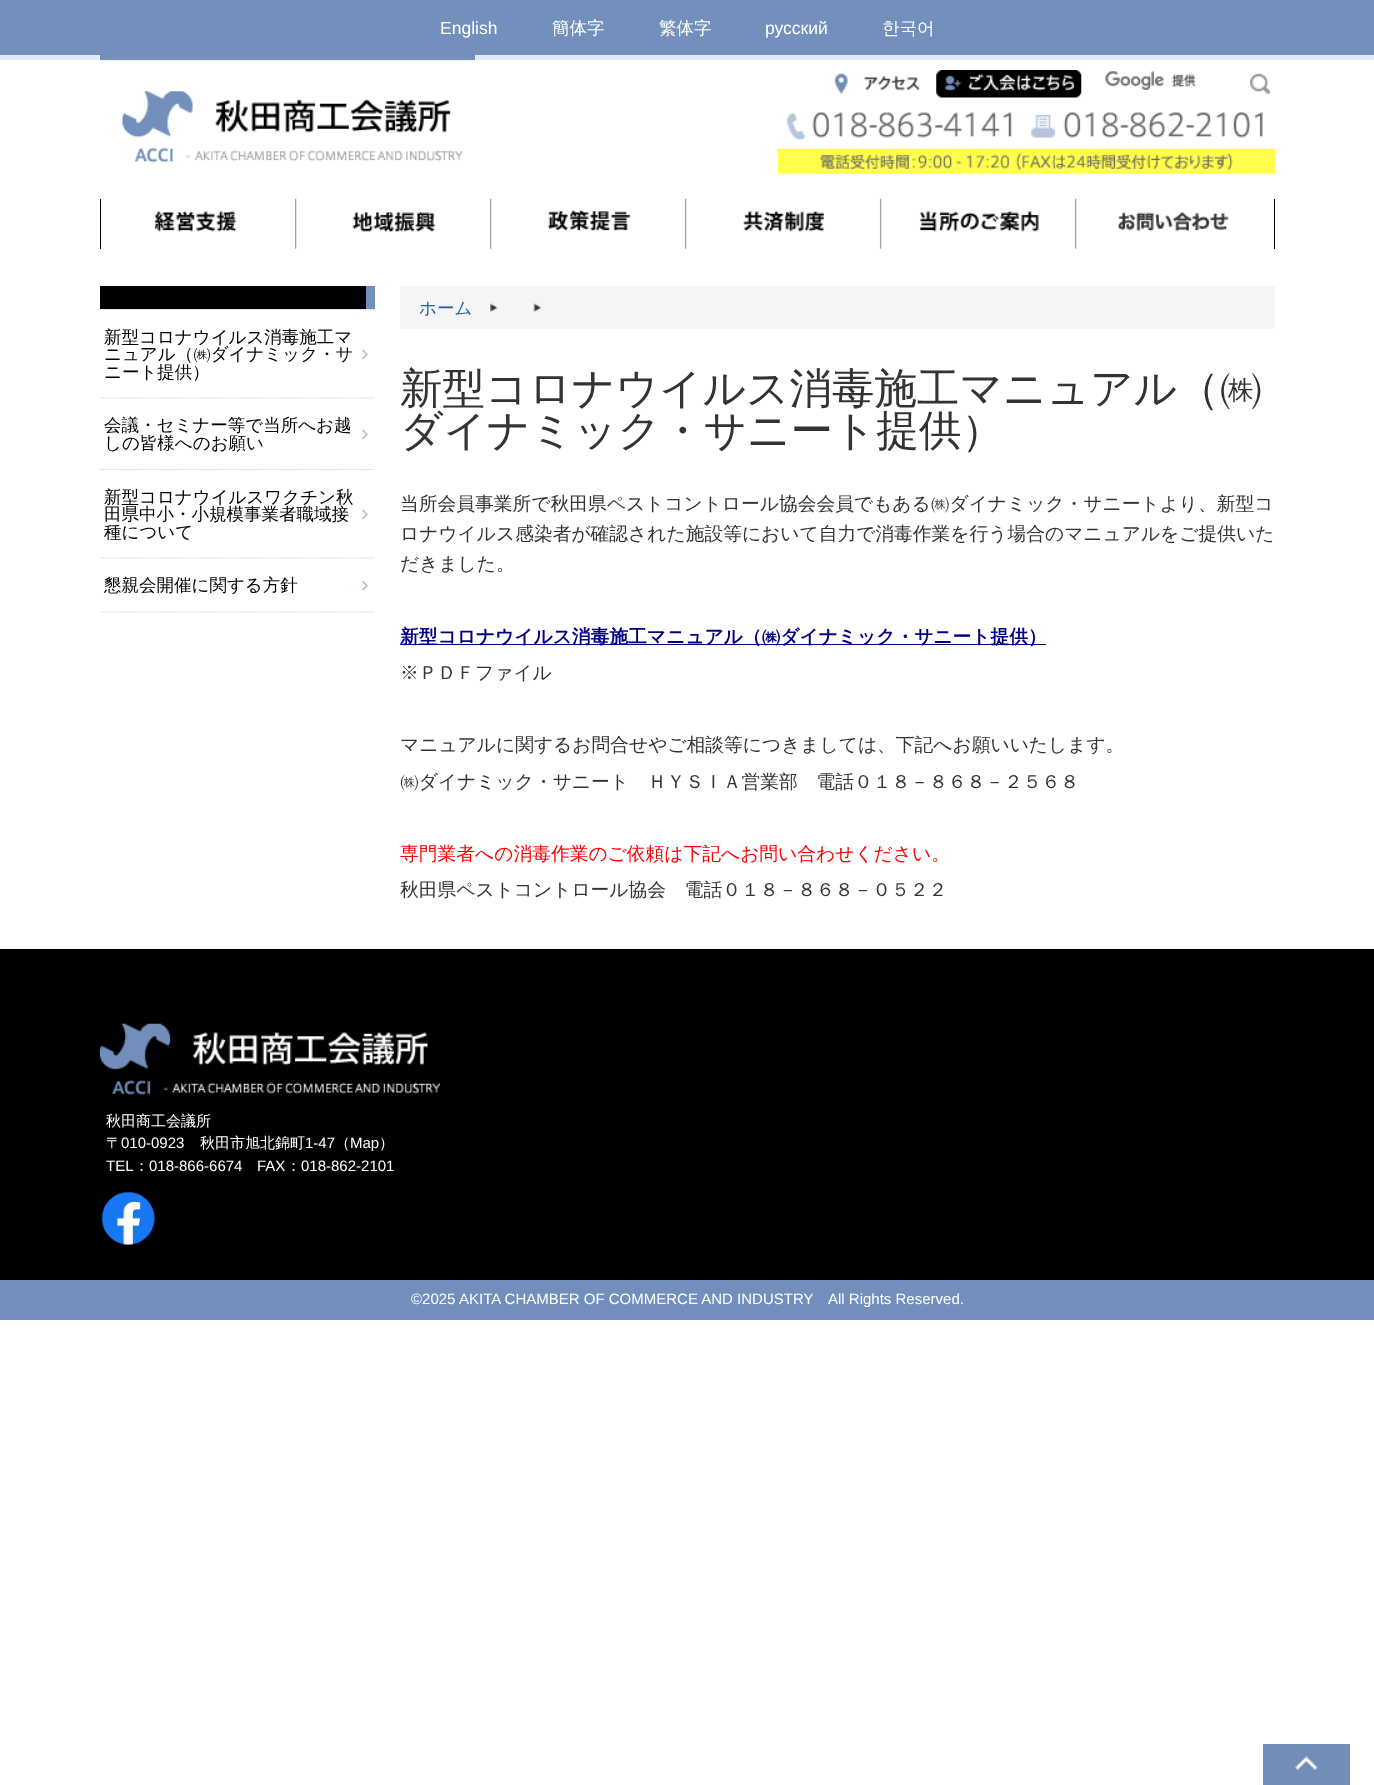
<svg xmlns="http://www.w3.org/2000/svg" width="1374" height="1785">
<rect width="100%" height="100%" fill="#fff"/>
<rect width="1374" height="55" fill="#7290bb"/>
<text x="440" y="34" style="font-family:Liberation Sans;font-size:17.5px;fill:#fff">English</text>
<text x="552" y="34" style="font-family:WenQuanYi Zen Hei;font-size:17.5px;font-weight:500;fill:#fff">簡体字</text>
<text x="659" y="34" style="font-family:WenQuanYi Zen Hei;font-size:17.5px;font-weight:500;fill:#fff">繁体字</text>
<text x="765" y="34" style="font-family:Liberation Sans;font-size:17.5px;fill:#fff">русский</text>
<text x="882" y="34" style="font-family:WenQuanYi Zen Hei;font-size:17.5px;font-weight:500;fill:#fff">한국어</text>
<rect y="55" width="1374" height="5" fill="#e0eaf9"/>
<image x="100" y="55" width="375" height="108" href="media/1.png"/>
<image x="834" y="73" width="86" height="21" href="media/2.png"/>
<image x="936" y="70" width="146" height="28" href="media/3.png"/>
<image x="1105" y="71" width="91" height="19" href="media/4.png"/>
<image x="1250" y="73" width="20" height="21" href="media/5.png"/>
<image x="777" y="112" width="498" height="62" href="media/6.png"/>
<rect x="1274" y="199" width="1" height="50" fill="#000"/>
<rect x="100" y="199" width="1" height="50" fill="#000"/>
<image x="154" y="198" width="143" height="51" href="media/7.png"/>
<image x="352" y="198" width="140" height="51" href="media/8.png"/>
<image x="547" y="198" width="140" height="51" href="media/9.png"/>
<image x="743" y="198" width="139" height="51" href="media/10.png"/>
<image x="919" y="198" width="158" height="51" href="media/11.png"/>
<image x="1117" y="212" width="112" height="20" href="media/12.png"/>
<path d="M100 612h275" fill="none" stroke="#ccc" stroke-width="1.2" stroke-dasharray="1.25 1.25"/>
<rect x="100" y="286" width="266" height="23" fill="#000"/>
<rect x="366" y="286" width="9" height="23" fill="#718fba"/>
<image x="362" y="350" width="6" height="9" href="media/13.png"/>
<path d="M100 309.5h275" fill="none" stroke="#ccc" stroke-width="1.2" stroke-dasharray="1.25 1.25"/>
<text x="104" y="343" style="font-family:WenQuanYi Zen Hei;font-size:17.5px;font-weight:500;fill:#000">新型コロナウイルス消毒施工マ</text>
<text x="104" y="360" style="font-family:WenQuanYi Zen Hei;font-size:17.5px;font-weight:500;fill:#000">ニュアル（㈱ダイナミック・サ</text>
<text x="104" y="378" style="font-family:WenQuanYi Zen Hei;font-size:17.5px;font-weight:500;fill:#000">ニート提供）</text>
<image x="362" y="430" width="6" height="9" href="media/13.png"/>
<path d="M100 398h275" fill="none" stroke="#ccc" stroke-width="1.2" stroke-dasharray="1.25 1.25"/>
<text x="104" y="431" style="font-family:WenQuanYi Zen Hei;font-size:17.5px;font-weight:500;fill:#000">会議・セミナー等で当所へお越</text>
<text x="104" y="449" style="font-family:WenQuanYi Zen Hei;font-size:17.5px;font-weight:500;fill:#000">しの皆様へのお願い</text>
<image x="362" y="510" width="6" height="9" href="media/13.png"/>
<path d="M100 469.5h275" fill="none" stroke="#ccc" stroke-width="1.2" stroke-dasharray="1.25 1.25"/>
<text x="104" y="503" style="font-family:WenQuanYi Zen Hei;font-size:17.5px;font-weight:500;fill:#000">新型コロナウイルスワクチン秋</text>
<text x="104" y="520" style="font-family:WenQuanYi Zen Hei;font-size:17.5px;font-weight:500;fill:#000">田県中小・小規模事業者職域接</text>
<text x="104" y="538" style="font-family:WenQuanYi Zen Hei;font-size:17.5px;font-weight:500;fill:#000">種について</text>
<image x="362" y="581" width="6" height="9" href="media/14.png"/>
<path d="M100 558h275" fill="none" stroke="#ccc" stroke-width="1.2" stroke-dasharray="1.25 1.25"/>
<text x="104" y="591" style="font-family:WenQuanYi Zen Hei;font-size:17.5px;font-weight:500;fill:#000">懇親会開催に関する方針</text>
<rect x="400" y="286" width="875" height="43" fill="#f5f5f5"/>
<text x="419" y="314" style="font-family:WenQuanYi Zen Hei;font-size:17.5px;font-weight:500;fill:#1b66ab">ホーム</text>
<image x="490" y="303" width="8" height="9" href="media/15.png"/>
<image x="533" y="303" width="9" height="9" href="media/16.png"/>
<text x="400" y="403" style="font-family:WenQuanYi Zen Hei;font-size:42.5px;font-weight:500;fill:#333">新型コロナウイルス消毒施工マニュアル（㈱</text>
<text x="400" y="445" style="font-family:WenQuanYi Zen Hei;font-size:42.5px;font-weight:500;fill:#333">ダイナミック・サニート提供）</text>
<text x="400" y="510" style="font-family:WenQuanYi Zen Hei;font-size:18.75px;font-weight:500;fill:#333">当所会員事業所で秋田県ペストコントロール協会会員でもある㈱ダイナミック・サニートより、新型コ</text>
<text x="400" y="540" style="font-family:WenQuanYi Zen Hei;font-size:18.75px;font-weight:500;fill:#333">ロナウイルス感染者が確認された施設等において自力で消毒作業を行う場合のマニュアルをご提供いた</text>
<text x="400" y="570" style="font-family:WenQuanYi Zen Hei;font-size:18.75px;font-weight:500;fill:#333">だきました。</text>
<rect x="400" y="644" width="646" height="1" fill="#000080"/>
<text x="400" y="643" style="font-family:WenQuanYi Zen Hei;font-size:18.75px;font-weight:bold;fill:#000080">新型コロナウイルス消毒施工マニュアル（㈱ダイナミック・サニート提供）</text>
<text x="400" y="679" style="font-family:WenQuanYi Zen Hei;font-size:18.75px;font-weight:500;fill:#333">※ＰＤＦファイル</text>
<text x="400" y="751" style="font-family:WenQuanYi Zen Hei;font-size:18.75px;font-weight:500;fill:#333">マニュアルに関するお問合せやご相談等につきましては、下記へお願いいたします。</text>
<text x="400" y="788" style="font-family:WenQuanYi Zen Hei;font-size:18.75px;font-weight:500;fill:#333">㈱ダイナミック・サニート　ＨＹＳＩＡ営業部　電話０１８－８６８－２５６８</text>
<text x="400" y="860" style="font-family:WenQuanYi Zen Hei;font-size:18.75px;font-weight:500;fill:#f00">専門業者への消毒作業のご依頼は下記へお問い合わせください。</text>
<text x="400" y="896" style="font-family:WenQuanYi Zen Hei;font-size:18.75px;font-weight:500;fill:#333">秋田県ペストコントロール協会　電話０１８－８６８－０５２２</text>
<rect y="949" width="1374" height="331" fill="#000"/>
<image x="100" y="1023" width="340" height="72" href="media/17.png"/>
<text x="106" y="1126" style="font-family:WenQuanYi Zen Hei;font-size:15px;font-weight:500;fill:#fff">秋田商工会議所</text>
<text x="106" y="1148" style="font-family:WenQuanYi Zen Hei;font-size:15px;font-weight:500;fill:#fff">〒</text>
<text x="121" y="1148" style="font-family:Liberation Sans;font-size:15px;fill:#fff">010-0923</text>
<text x="200" y="1148" style="font-family:WenQuanYi Zen Hei;font-size:15px;font-weight:500;fill:#fff">秋田市旭北錦町</text>
<text x="305" y="1148" style="font-family:Liberation Sans;font-size:15px;fill:#fff">1-47</text>
<text x="335" y="1148" style="font-family:WenQuanYi Zen Hei;font-size:15px;font-weight:500;fill:#fff">（</text>
<text x="350" y="1148" style="font-family:Liberation Sans;font-size:15px;fill:#fff">Map</text>
<text x="379" y="1148" style="font-family:WenQuanYi Zen Hei;font-size:15px;font-weight:500;fill:#fff">）</text>
<text x="106" y="1171" style="font-family:Liberation Sans;font-size:15px;fill:#fff">TEL</text>
<text x="134" y="1171" style="font-family:WenQuanYi Zen Hei;font-size:15px;font-weight:500;fill:#fff">：</text>
<text x="149" y="1171" style="font-family:Liberation Sans;font-size:15px;fill:#fff">018-866-6674</text>
<text x="257" y="1171" style="font-family:Liberation Sans;font-size:15px;fill:#fff">FAX</text>
<text x="286" y="1171" style="font-family:WenQuanYi Zen Hei;font-size:15px;font-weight:500;fill:#fff">：</text>
<text x="301" y="1171" style="font-family:Liberation Sans;font-size:15px;fill:#fff">018-862-2101</text>
<image x="101" y="1191" width="54" height="54" href="media/18.png"/>
<rect y="1280" width="1374" height="40" fill="#718fba"/>
<text x="411" y="1304" style="font-family:Liberation Sans;font-size:15px;fill:#fff">©2025</text>
<text x="459" y="1304" style="font-family:Liberation Sans;font-size:15px;fill:#fff">AKITA CHAMBER OF COMMERCE AND INDUSTRY</text>
<text x="828" y="1304" style="font-family:Liberation Sans;font-size:15px;fill:#fff">All Rights Reserved.</text>
<rect x="1263" y="1744" width="87" height="41" fill="#718db8"/>
<image x="1295" y="1756" width="23" height="14" href="media/19.png"/>
</svg>
